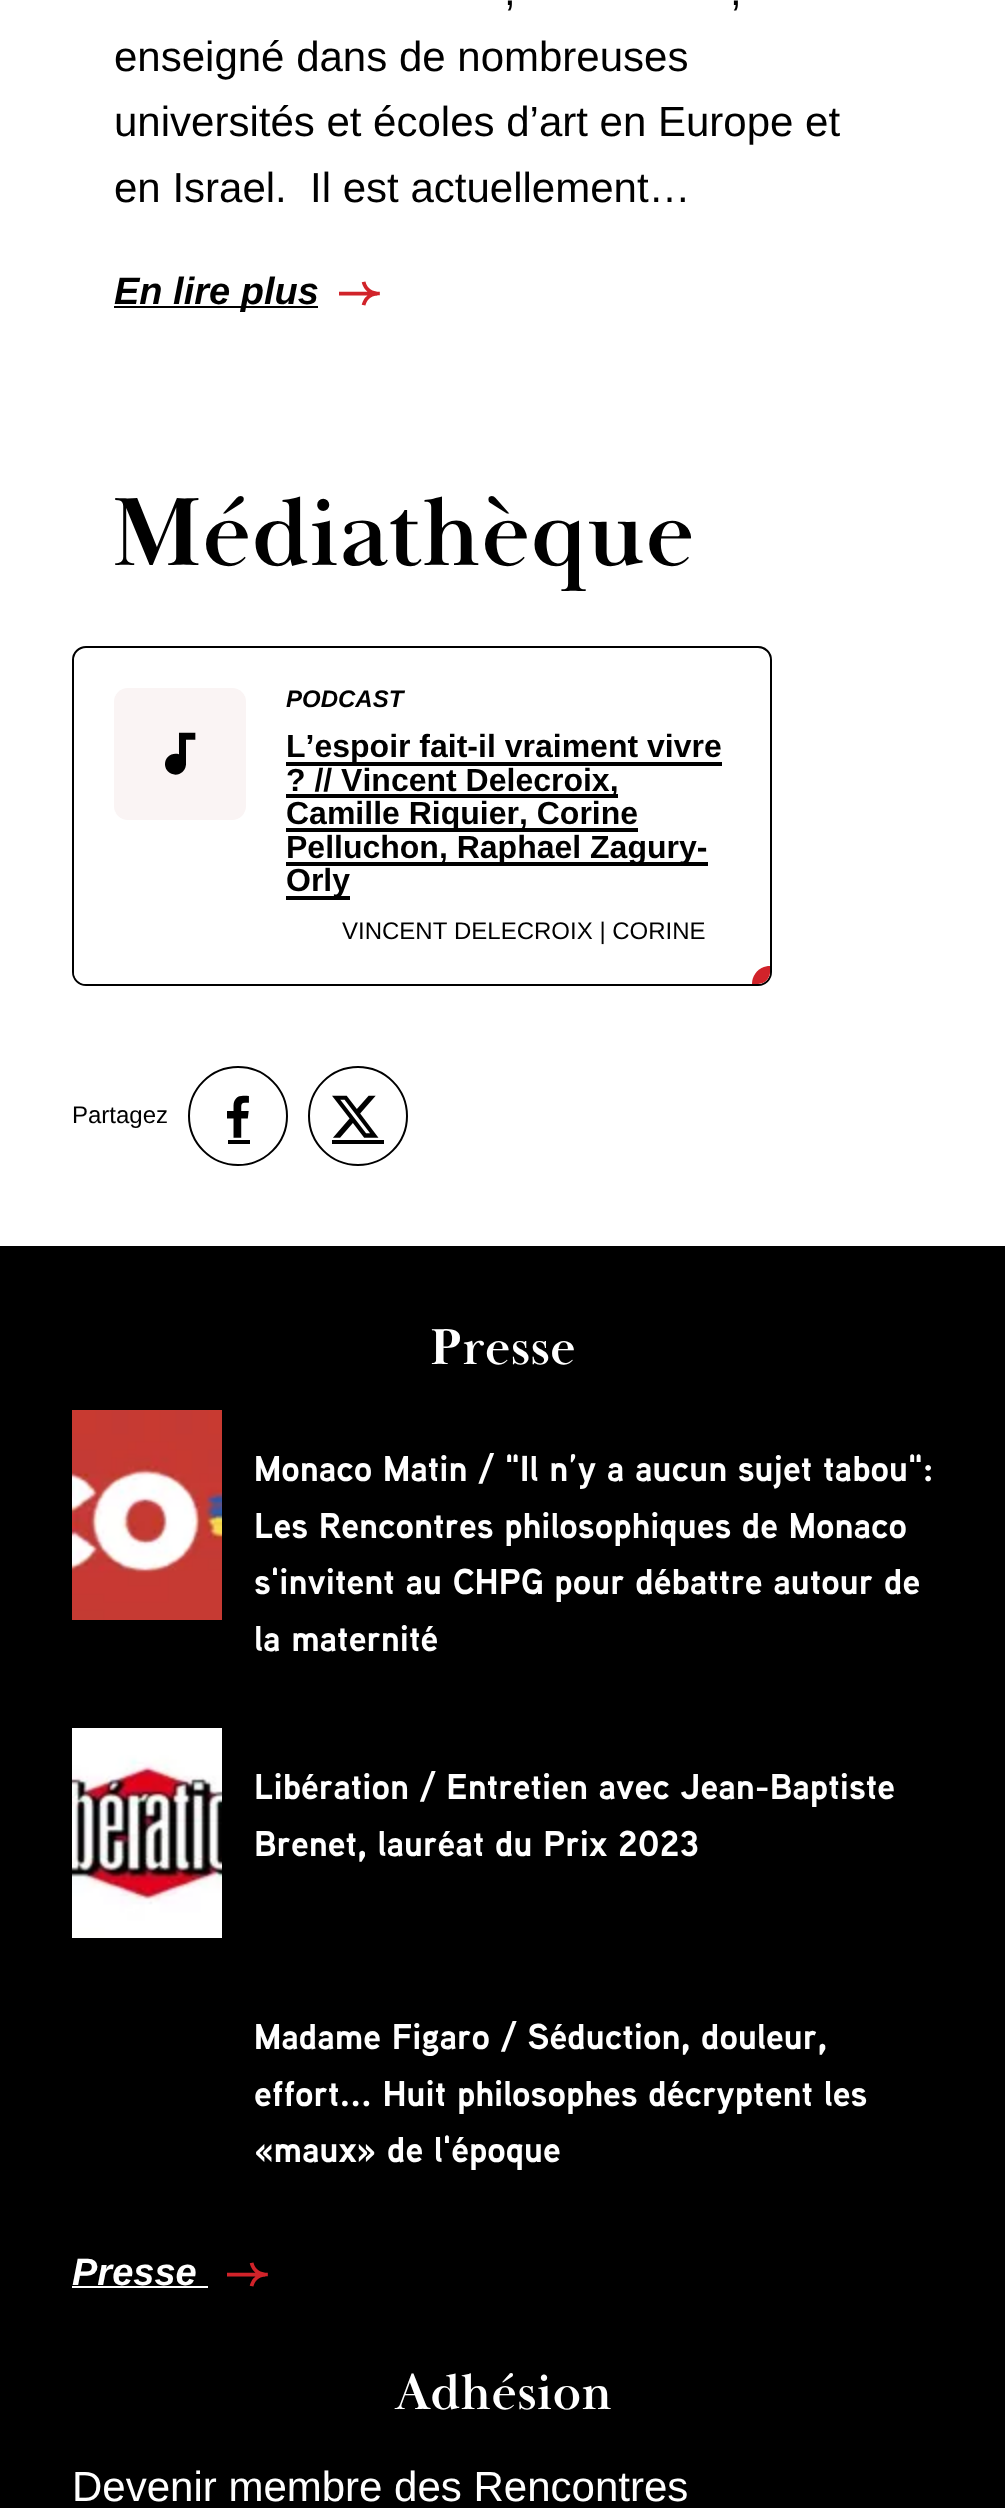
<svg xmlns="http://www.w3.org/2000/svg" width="1005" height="2508">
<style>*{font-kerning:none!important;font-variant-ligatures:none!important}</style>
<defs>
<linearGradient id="g1" gradientUnits="userSpaceOnUse" x1="422" y1="984" x2="422" y2="944"><stop offset="0" stop-color="#fff"/><stop offset="0.75" stop-color="#fff"/><stop offset="1" stop-color="#fff" stop-opacity="0"/></linearGradient>
</defs>
<rect width="100%" height="100%" fill="#fff"/>
<text x="504" y="5" style="font-family:Liberation Sans;font-size:42px;fill:#000">,</text>
<text x="730" y="5" style="font-family:Liberation Sans;font-size:42px;fill:#000">,</text>
<text x="114" y="71" style="font-family:Liberation Sans;font-size:42px;fill:#000">enseigné dans de nombreuses</text>
<text x="114" y="136" style="font-family:Liberation Sans;font-size:42px;fill:#000">universités et écoles d’art en Europe et</text>
<text x="114" y="202" style="font-family:Liberation Sans;font-size:42px;fill:#000" xml:space="preserve">en Israel.  Il est actuellement…</text>
<rect x="114" y="306" width="204" height="2" fill="#000"/>
<text x="114" y="304" style="font-family:Liberation Sans;font-size:38px;font-weight:bold;font-style:italic;fill:#000">En lire plus</text>
<text x="339" y="304" style="font-family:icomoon;font-size:24px;fill:#d1232a">➡</text>
<text x="112" y="565" style="font-family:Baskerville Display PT;font-size:100px;font-weight:bold;fill:#000">Médiathèque</text>
<rect x="73" y="647" width="698" height="338" rx="13" fill="none" stroke="#000" stroke-width="2"/>
<rect x="114" y="688" width="132" height="132" rx="14" fill="#faf4f4"/>
<text x="165" y="772" style="font-family:icomoon;font-size:42px;fill:#000">🎵</text>
<text x="286" y="707" style="font-family:Liberation Sans;font-size:24px;font-weight:bold;font-style:italic;fill:#000">PODCAST</text>
<rect x="286" y="762" width="436" height="4" fill="#000"/>
<text x="286" y="757" style="font-family:Liberation Sans;font-size:32px;font-weight:bold;fill:#000">L’espoir fait-il vraiment vivre</text>
<rect x="286" y="794" width="332" height="4" fill="#000"/>
<text x="286" y="791" style="font-family:Liberation Sans;font-size:32px;font-weight:bold;fill:#000">? // Vincent Delecroix,</text>
<rect x="286" y="828" width="352" height="4" fill="#000"/>
<text x="286" y="824" style="font-family:Liberation Sans;font-size:32px;font-weight:bold;fill:#000">Camille Riquier, Corine</text>
<rect x="286" y="862" width="422" height="4" fill="#000"/>
<text x="286" y="858" style="font-family:Liberation Sans;font-size:32px;font-weight:bold;fill:#000">Pelluchon, Raphael Zagury-</text>
<rect x="286" y="896" width="64" height="4" fill="#000"/>
<text x="286" y="891" style="font-family:Liberation Sans;font-size:32px;font-weight:bold;fill:#000">Orly</text>
<text x="342" y="939" style="font-family:Liberation Sans;font-size:24px;fill:#000">VINCENT DELECROIX | CORINE</text>
<path d="M74 944h696v28c0 6.5-5.5 12-12 12h-672c-6.5 0-12-5.5-12-12z" fill="url(#g1)"/>
<path d="M770 966v6c0 6.5-5.5 12-12 12h-6c0-10 8-18 18-18z" fill="#d1232a"/>
<text x="72" y="1123" style="font-family:Liberation Sans;font-size:24px;fill:#000">Partagez</text>
<circle cx="238" cy="1116" r="49" fill="none" stroke="#000" stroke-width="2"/>
<text x="227" y="1135" style="font-family:icomoon;font-size:42px;fill:#000">📘</text>
<rect x="228" y="1140" width="22" height="4" fill="#000"/>
<circle cx="358" cy="1116" r="49" fill="none" stroke="#000" stroke-width="2"/>
<text x="332" y="1135" style="font-family:icomoon;font-size:42px;fill:#000">🐤</text>
<rect x="332" y="1140" width="52" height="4" fill="#000"/>
<rect y="1246" width="1005" height="1262" fill="#000"/>
<text x="430" y="1364" style="font-family:Baskerville Display PT;font-size:52px;font-weight:bold;fill:#fff">Presse</text>
<image x="72" y="1410" width="150" height="210" href="media/1.png"/>
<text x="254" y="1481" style="font-family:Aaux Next;font-size:36px;font-weight:bold;fill:#fff">Monaco Matin / "Il n’y a aucun sujet tabou":</text>
<text x="254" y="1538" style="font-family:Aaux Next;font-size:36px;font-weight:bold;fill:#fff">Les Rencontres philosophiques de Monaco</text>
<text x="254" y="1594" style="font-family:Aaux Next;font-size:36px;font-weight:bold;fill:#fff">s'invitent au CHPG pour débattre autour</text>
<text x="884" y="1594" style="font-family:Aaux Next;font-size:36px;font-weight:bold;fill:#fff">de</text>
<text x="254" y="1651" style="font-family:Aaux Next;font-size:36px;font-weight:bold;fill:#fff">la maternité</text>
<image x="72" y="1728" width="150" height="210" href="media/2.png"/>
<text x="254" y="1799" style="font-family:Aaux Next;font-size:36px;font-weight:bold;fill:#fff">Libération / Entretien avec Jean-Baptiste</text>
<text x="254" y="1856" style="font-family:Aaux Next;font-size:36px;font-weight:bold;fill:#fff">Brenet, lauréat du Prix 2023</text>
<text x="254" y="2049" style="font-family:Aaux Next;font-size:36px;font-weight:bold;fill:#fff">Madame Figaro / Séduction, douleur,</text>
<text x="254" y="2106" style="font-family:Aaux Next;font-size:36px;font-weight:bold;fill:#fff">effort... Huit philosophes décryptent les</text>
<text x="254" y="2162" style="font-family:Aaux Next;font-size:36px;font-weight:bold;fill:#fff">«maux» de l'époque</text>
<text x="72" y="2285" style="font-family:Liberation Sans;font-size:38px;font-weight:bold;font-style:italic;fill:#fff">Presse</text>
<rect x="72" y="2286" width="136" height="2" fill="#fff"/>
<text x="227" y="2285" style="font-family:icomoon;font-size:24px;fill:#d1232a">➡</text>
<text x="395" y="2409" style="font-family:Baskerville Display PT;font-size:52px;font-weight:bold;fill:#fff">Adhésion</text>
<text x="72" y="2501" style="font-family:Liberation Sans;font-size:42px;fill:#fff">Devenir membre des Rencontres</text>
</svg>
